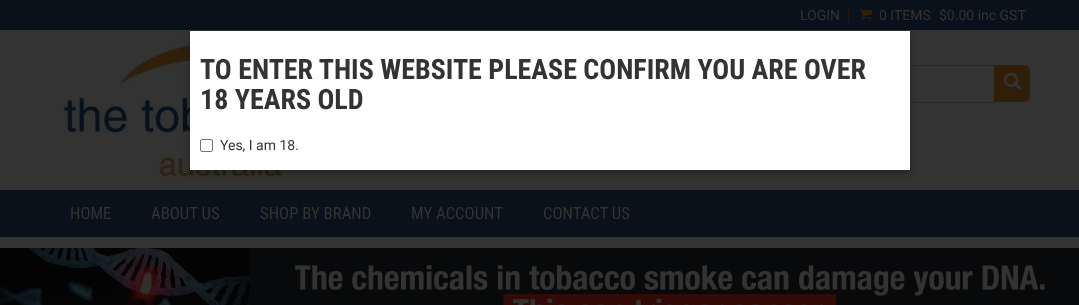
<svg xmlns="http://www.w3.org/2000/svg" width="1079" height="305">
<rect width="100%" height="100%" fill="#333"/>
<rect width="1079" height="30" fill="#09111a"/>
<text x="800" y="20" style="font-family:Roboto;font-size:14px;fill:#333">LOGIN</text>
<rect x="848" y="8" width="1" height="14" fill="#181818"/>
<image x="859" y="9" width="13" height="11" href="media/1.png"/>
<text x="879" y="20" style="font-family:Roboto;font-size:14px;fill:#333">0 ITEMS</text>
<text x="939" y="20" style="font-family:Roboto;font-size:14px;fill:#333">$0.00 inc GST</text>
<image x="60" y="37" width="322" height="153" href="media/2.png"/>
<rect x="595.5" y="65.5" width="399" height="37" fill="none" stroke="#282826"/>
<path d="M994 65h30c3.5 0 6 2.5 6 6v25c0 3.5-2.5 6-6 6h-30z" fill="#311e08"/>
<image x="1004" y="72" width="17" height="18" href="media/3.png"/>
<rect y="190" width="1079" height="47" fill="#09111a"/>
<text x="70" y="219" style="font-family:Roboto Condensed;font-size:16.75px;fill:#333">HOME</text>
<text x="151" y="219" style="font-family:Roboto Condensed;font-size:16.75px;fill:#333">ABOUT US</text>
<text x="260" y="219" style="font-family:Roboto Condensed;font-size:16.75px;fill:#333">SHOP BY BRAND</text>
<text x="411" y="219" style="font-family:Roboto Condensed;font-size:16.75px;fill:#333">MY ACCOUNT</text>
<text x="543" y="219" style="font-family:Roboto Condensed;font-size:16.75px;fill:#333">CONTACT US</text>
<image x="0" y="248" width="1079" height="57" href="media/4.png"/>
<rect x="190" y="34" width="720" height="139" fill="#0000004d" filter="blur(3.5px)"/>
<rect x="190" y="31" width="720" height="139" fill="#fff"/>
<text x="200" y="79" style="font-family:Roboto Condensed;font-size:28px;font-weight:bold;fill:#333">TO ENTER THIS WEBSITE PLEASE CONFIRM YOU ARE OVER</text>
<text x="200" y="109" style="font-family:Roboto Condensed;font-size:28px;font-weight:bold;fill:#333">18 YEARS OLD</text>
<rect x="200.5" y="139.5" width="12" height="12" rx="1.5" fill="none" stroke="#767676"/>
<text x="220" y="150" style="font-family:Roboto;font-size:14px;fill:#333">Yes, I am 18.</text>
</svg>
